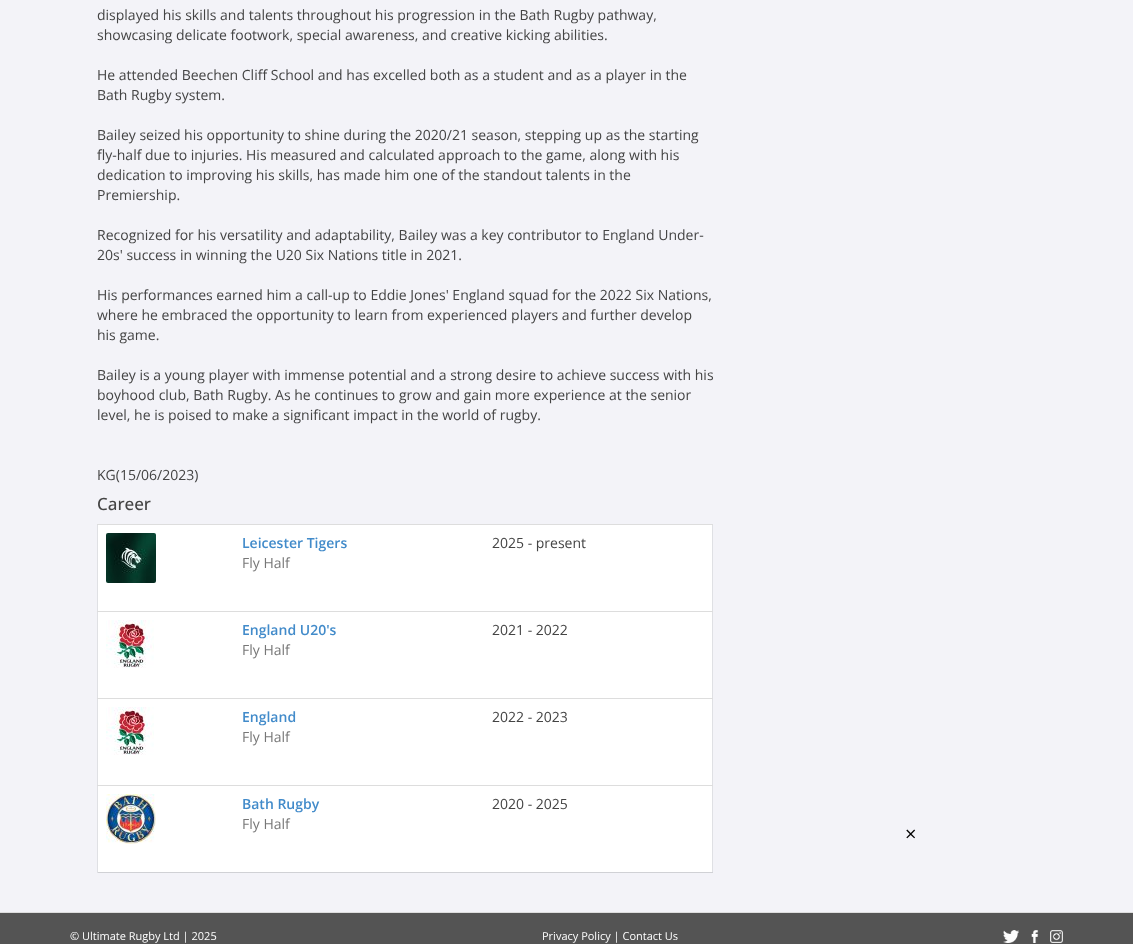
<svg xmlns="http://www.w3.org/2000/svg" width="1133" height="944">
<rect width="100%" height="100%" fill="#f3f3f8"/>
<text x="97" y="20" style="font-family:Open Sans;font-size:14px;fill:#444">displayed his skills and talents throughout his progression in the Bath Rugby pathway,</text>
<text x="97" y="40" style="font-family:Open Sans;font-size:14px;fill:#444">showcasing delicate footwork, special awareness, and creative kicking abilities.</text>
<text x="97" y="80" style="font-family:Open Sans;font-size:14px;fill:#444">He attended Beechen Cliff School and has excelled both as a student and as a player in the</text>
<text x="97" y="100" style="font-family:Open Sans;font-size:14px;fill:#444">Bath Rugby system.</text>
<text x="97" y="140" style="font-family:Open Sans;font-size:14px;fill:#444">Bailey seized his opportunity to shine during the 2020/21 season, stepping up as the starting</text>
<text x="97" y="160" style="font-family:Open Sans;font-size:14px;fill:#444">fly-half due to injuries. His measured and calculated approach to the game, along with his</text>
<text x="97" y="180" style="font-family:Open Sans;font-size:14px;fill:#444">dedication to improving his skills, has made him one of the standout talents in the</text>
<text x="97" y="200" style="font-family:Open Sans;font-size:14px;fill:#444">Premiership.</text>
<text x="97" y="240" style="font-family:Open Sans;font-size:14px;fill:#444">Recognized for his versatility and adaptability, Bailey was a key contributor to England Under-</text>
<text x="97" y="260" style="font-family:Open Sans;font-size:14px;fill:#444">20s' success in winning the U20 Six Nations title in 2021.</text>
<text x="97" y="300" style="font-family:Open Sans;font-size:14px;fill:#444">His performances earned him a call-up to Eddie Jones' England squad for the 2022 Six Nations,</text>
<text x="97" y="320" style="font-family:Open Sans;font-size:14px;fill:#444">where he embraced the opportunity to learn from experienced players and further develop</text>
<text x="97" y="340" style="font-family:Open Sans;font-size:14px;fill:#444">his game.</text>
<text x="97" y="380" style="font-family:Open Sans;font-size:14px;fill:#444">Bailey is a young player with immense potential and a strong desire to achieve success with his</text>
<text x="97" y="400" style="font-family:Open Sans;font-size:14px;fill:#444">boyhood club, Bath Rugby. As he continues to grow and gain more experience at the senior</text>
<text x="97" y="420" style="font-family:Open Sans;font-size:14px;fill:#444">level, he is poised to make a significant impact in the world of rugby.</text>
<text x="97" y="480" style="font-family:Open Sans;font-size:14px;fill:#444">KG(15/06/2023)</text>
<text x="97" y="510" style="font-family:Open Sans;font-size:17px;font-weight:500;fill:#444">Career</text>
<rect x="98" y="525" width="614" height="347" fill="#fff"/>
<rect x="712" y="524" width="1" height="349" fill="#dfe0e4"/>
<rect x="97" y="872" width="616" height="1" fill="#d0d1d5"/>
<rect x="97" y="524" width="1" height="349" fill="#dfe0e4"/>
<image x="106" y="533" width="50" height="50" href="media/1.png"/>
<text x="242" y="548" style="font-family:Open Sans;font-size:14px;font-weight:600;fill:#428bca">Leicester Tigers</text>
<text x="242" y="568" style="font-family:Open Sans;font-size:14px;fill:#777">Fly Half</text>
<rect x="97" y="524" width="616" height="1" fill="#ddd"/>
<text x="492" y="548" style="font-family:Open Sans;font-size:14px;fill:#444">2025 - present</text>
<image x="106" y="620" width="48" height="48" href="media/2.png"/>
<text x="242" y="635" style="font-family:Open Sans;font-size:14px;font-weight:600;fill:#428bca">England U20's</text>
<text x="242" y="655" style="font-family:Open Sans;font-size:14px;fill:#777">Fly Half</text>
<rect x="97" y="611" width="616" height="1" fill="#ddd"/>
<text x="492" y="635" style="font-family:Open Sans;font-size:14px;fill:#444">2021 - 2022</text>
<image x="106" y="707" width="48" height="48" href="media/2.png"/>
<text x="242" y="722" style="font-family:Open Sans;font-size:14px;font-weight:600;fill:#428bca">England</text>
<text x="242" y="742" style="font-family:Open Sans;font-size:14px;fill:#777">Fly Half</text>
<rect x="97" y="698" width="616" height="1" fill="#ddd"/>
<text x="492" y="722" style="font-family:Open Sans;font-size:14px;fill:#444">2022 - 2023</text>
<image x="106" y="794" width="50" height="50" href="media/3.png"/>
<text x="242" y="809" style="font-family:Open Sans;font-size:14px;font-weight:600;fill:#428bca">Bath Rugby</text>
<text x="242" y="829" style="font-family:Open Sans;font-size:14px;fill:#777">Fly Half</text>
<rect x="97" y="785" width="616" height="1" fill="#ddd"/>
<text x="492" y="809" style="font-family:Open Sans;font-size:14px;fill:#444">2020 - 2025</text>
<text x="905" y="841" style="font-family:Open Sans;font-size:20px;fill:#000">×</text>
<rect y="913" width="1133" height="31" fill="#545454"/>
<rect y="912" width="1133" height="1" fill="#ddd"/>
<text x="70" y="940" style="font-family:Open Sans;font-size:11px;fill:#fff">© Ultimate Rugby Ltd | 2025</text>
<text x="542" y="940" style="font-family:Open Sans;font-size:11px;fill:#fff">Privacy Policy | Contact Us</text>
<image x="1003" y="930" width="16" height="13" href="media/4.png"/>
<image x="1031" y="930" width="8" height="13" href="media/5.png"/>
<image x="1050" y="930" width="13" height="13" href="media/6.png"/>
</svg>
